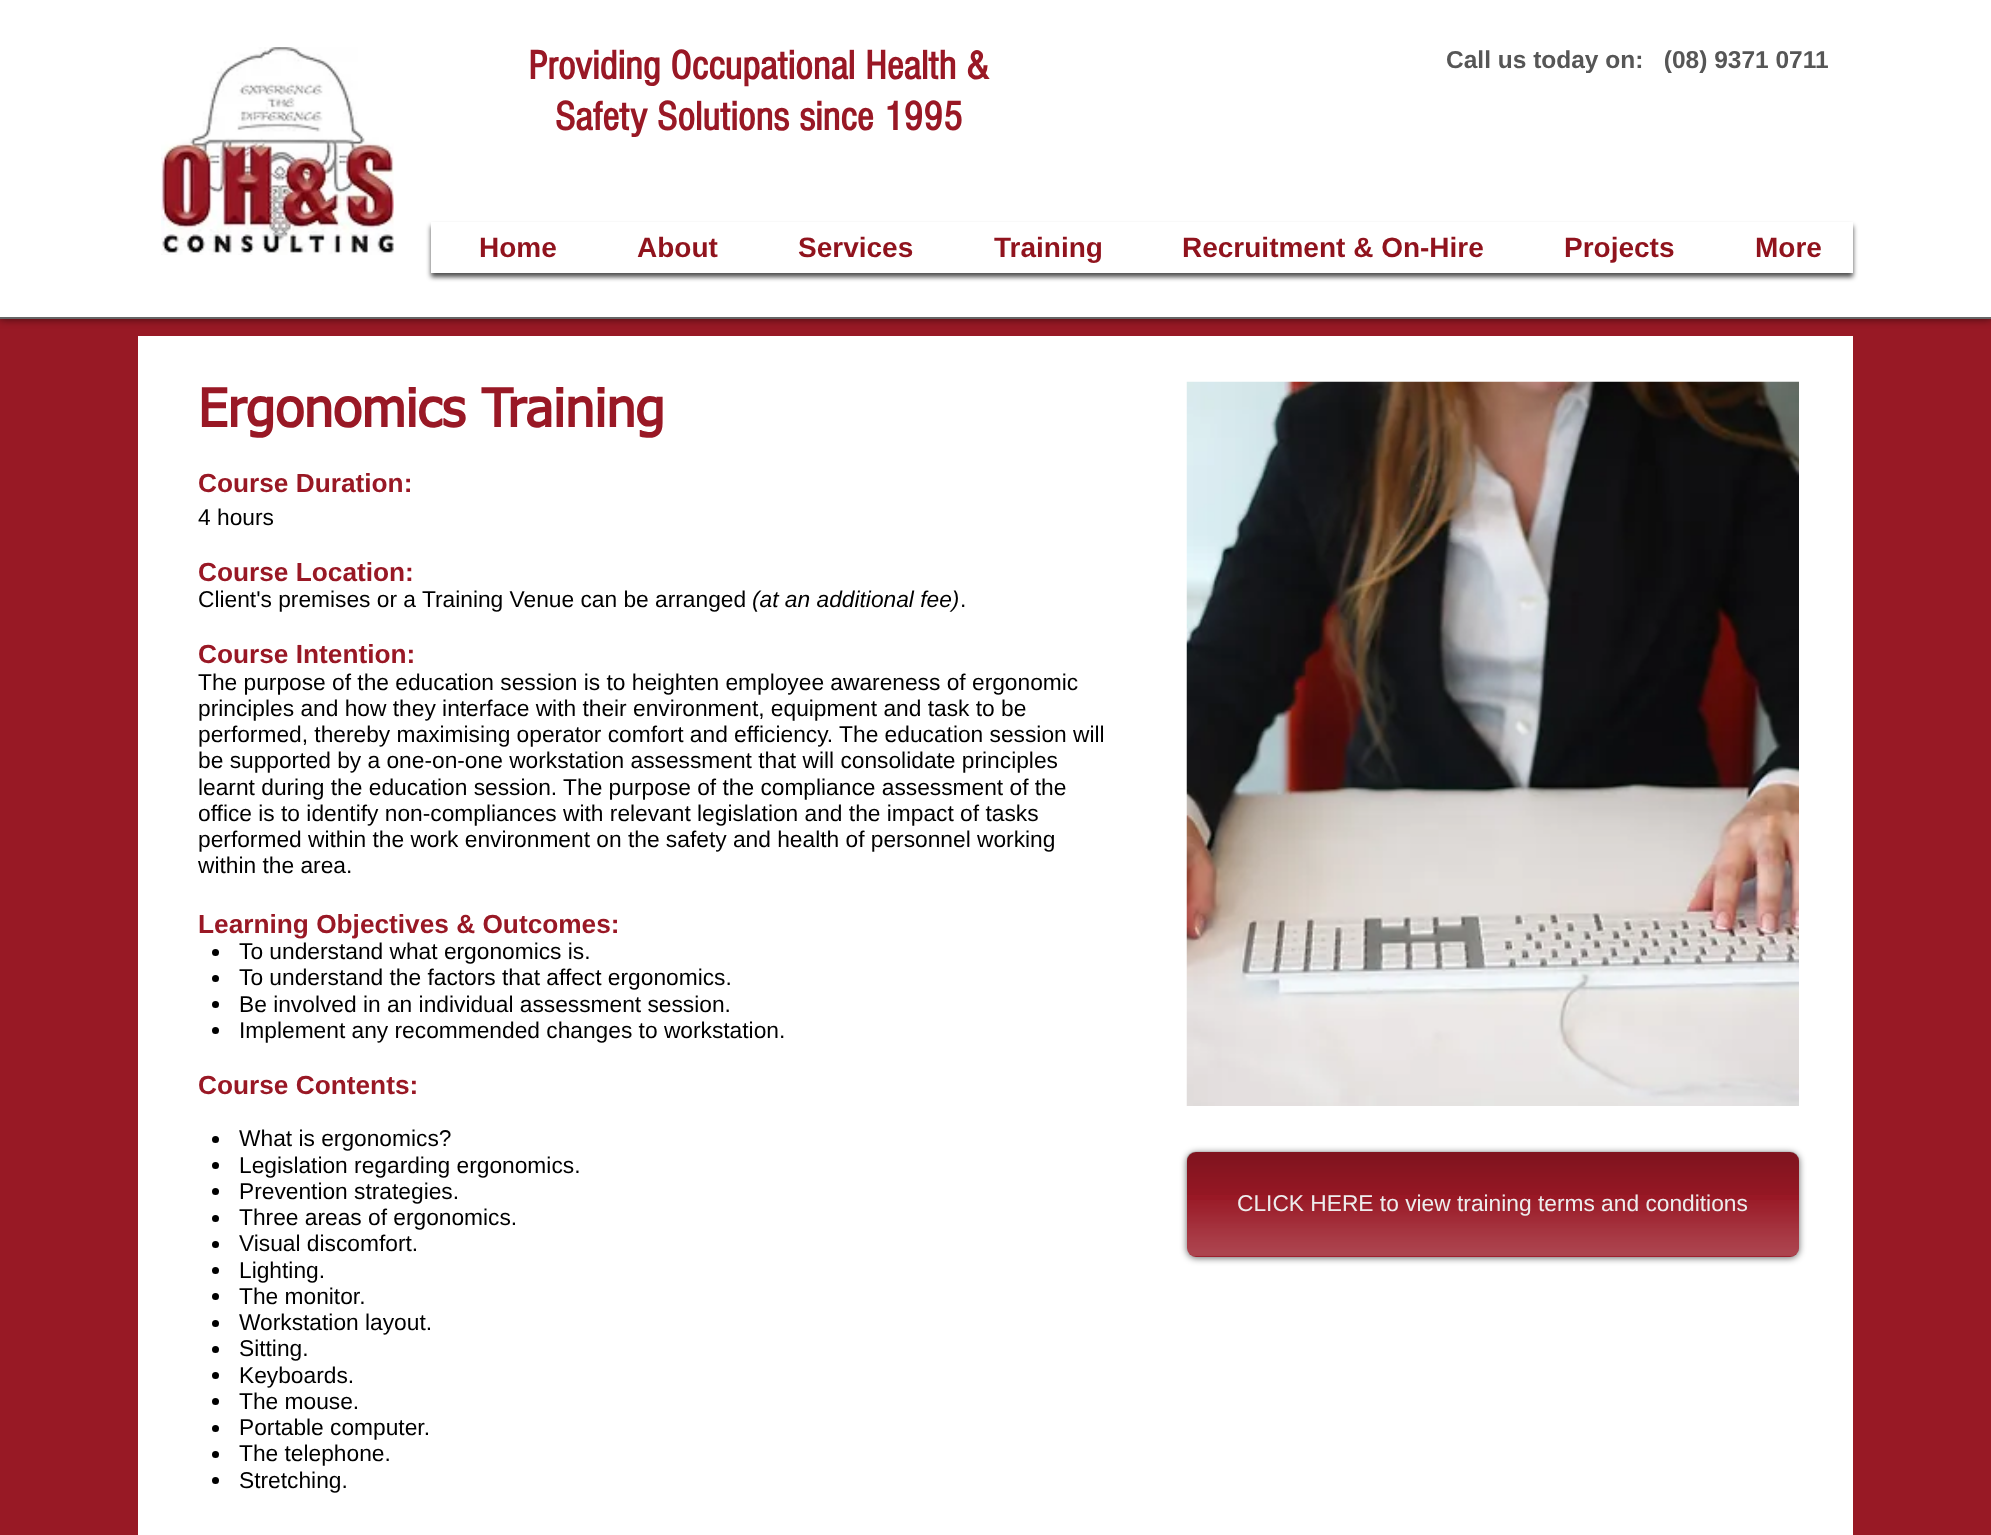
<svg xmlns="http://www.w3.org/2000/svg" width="1991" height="1535">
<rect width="100%" height="100%" fill="#981925"/>
<rect width="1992" height="319" fill="#00000099" filter="blur(4.5px)"/>
<rect width="1991" height="317" fill="#fff"/>
<rect y="317" width="1991" height="2" fill="#666"/>
<image x="161" y="47" width="233" height="208" href="media/1.png"/>
<text x="528" y="79" style="font-family:'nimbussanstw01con';font-size:42px;font-weight:bold;fill:#991825">Providing Occupational Health &amp;</text>
<text x="555" y="130" style="font-family:'nimbussanstw01con';font-size:42px;font-weight:bold;fill:#991825">Safety Solutions since 1995</text>
<text x="1446" y="68" style="font-family:Liberation Sans;font-size:24.5px;font-weight:bold;fill:#565656" xml:space="preserve">Call us today on:   (08) 9371 0711</text>
<rect x="431" y="226" width="1422" height="51" fill="#000000b3" filter="blur(2.5px)"/>
<rect x="431" y="222" width="1422" height="51" fill="#fff"/>
<text x="479" y="257" style="font-family:Liberation Sans;font-size:28px;font-weight:bold;fill:#90131d">Home</text>
<text x="637" y="257" style="font-family:Liberation Sans;font-size:28px;font-weight:bold;fill:#90131d">About</text>
<text x="798" y="257" style="font-family:Liberation Sans;font-size:28px;font-weight:bold;fill:#90131d">Services</text>
<text x="994" y="257" style="font-family:Liberation Sans;font-size:28px;font-weight:bold;fill:#90131d">Training</text>
<text x="1182" y="257" style="font-family:Liberation Sans;font-size:28px;font-weight:bold;fill:#90131d">Recruitment &amp; On-Hire</text>
<text x="1564" y="257" style="font-family:Liberation Sans;font-size:28px;font-weight:bold;fill:#90131d">Projects</text>
<text x="1755" y="257" style="font-family:Liberation Sans;font-size:28px;font-weight:bold;fill:#90131d">More</text>
<rect x="138" y="336" width="1715" height="1199" fill="#fff"/>
<text x="198" y="427" style="font-family:tahoma;font-size:52.5px;font-weight:bold;fill:#991825">Ergonomics Training</text>
<text x="198" y="492" style="font-family:Liberation Sans;font-size:26.25px;font-weight:bold;fill:#991825">Course Duration:</text>
<text x="198" y="525" style="font-family:Liberation Sans;font-size:22.75px;fill:#000">4 hours</text>
<text x="198" y="581" style="font-family:Liberation Sans;font-size:26.25px;font-weight:bold;fill:#991825">Course Location:</text>
<text x="198" y="607" style="font-family:Liberation Sans;font-size:22.75px;fill:#000">Client's premises or a Training Venue can be arranged</text>
<text x="752" y="607" style="font-family:Liberation Sans;font-size:22.75px;font-style:italic;fill:#000">(at an additional fee)</text>
<text x="960" y="607" style="font-family:Liberation Sans;font-size:22.75px;fill:#000">.</text>
<text x="198" y="663" style="font-family:Liberation Sans;font-size:26.25px;font-weight:bold;fill:#991825">Course Intention:</text>
<text x="198" y="690" style="font-family:Liberation Sans;font-size:22.75px;fill:#000">The purpose of the education session is to heighten employee awareness of ergonomic</text>
<text x="198" y="716" style="font-family:Liberation Sans;font-size:22.75px;fill:#000">principles and how they interface with their environment, equipment and task to be</text>
<text x="198" y="742" style="font-family:Liberation Sans;font-size:22.75px;fill:#000">performed, thereby maximising operator comfort and efficiency. The education session will</text>
<text x="198" y="768" style="font-family:Liberation Sans;font-size:22.75px;fill:#000">be supported by a one-on-one workstation assessment that will consolidate principles</text>
<text x="198" y="795" style="font-family:Liberation Sans;font-size:22.75px;fill:#000">learnt during the education session. The purpose of the compliance assessment of the</text>
<text x="198" y="821" style="font-family:Liberation Sans;font-size:22.75px;fill:#000">office is to identify non-compliances with relevant legislation and the impact of tasks</text>
<text x="198" y="847" style="font-family:Liberation Sans;font-size:22.75px;fill:#000">performed within the work environment on the safety and health of personnel working</text>
<text x="198" y="873" style="font-family:Liberation Sans;font-size:22.75px;fill:#000">within the area.</text>
<text x="198" y="933" style="font-family:Liberation Sans;font-size:26.25px;font-weight:bold;fill:#991825">Learning Objectives &amp; Outcomes:</text>
<circle cx="215.5" cy="952.5" r="3.5" fill="#000"/>
<text x="239" y="959" style="font-family:Liberation Sans;font-size:22.75px;fill:#000">To understand what ergonomics is.</text>
<circle cx="215.5" cy="978.5" r="3.5" fill="#000"/>
<text x="239" y="985" style="font-family:Liberation Sans;font-size:22.75px;fill:#000">To understand the factors that affect ergonomics.</text>
<circle cx="215.5" cy="1004.5" r="3.5" fill="#000"/>
<text x="239" y="1012" style="font-family:Liberation Sans;font-size:22.75px;fill:#000">Be involved in an individual assessment session.</text>
<circle cx="215.5" cy="1030.5" r="3.5" fill="#000"/>
<text x="239" y="1038" style="font-family:Liberation Sans;font-size:22.75px;fill:#000">Implement any recommended changes to workstation.</text>
<text x="198" y="1094" style="font-family:Liberation Sans;font-size:26.25px;font-weight:bold;fill:#991825">Course Contents:</text>
<circle cx="215.5" cy="1139.5" r="3.5" fill="#000"/>
<text x="239" y="1146" style="font-family:Liberation Sans;font-size:22.75px;fill:#000">What is ergonomics?</text>
<circle cx="215.5" cy="1165.5" r="3.5" fill="#000"/>
<text x="239" y="1173" style="font-family:Liberation Sans;font-size:22.75px;fill:#000">Legislation regarding ergonomics.</text>
<circle cx="215.5" cy="1191.5" r="3.5" fill="#000"/>
<text x="239" y="1199" style="font-family:Liberation Sans;font-size:22.75px;fill:#000">Prevention strategies.</text>
<circle cx="215.5" cy="1218.5" r="3.5" fill="#000"/>
<text x="239" y="1225" style="font-family:Liberation Sans;font-size:22.75px;fill:#000">Three areas of ergonomics.</text>
<circle cx="215.5" cy="1244.5" r="3.5" fill="#000"/>
<text x="239" y="1251" style="font-family:Liberation Sans;font-size:22.75px;fill:#000">Visual discomfort.</text>
<circle cx="215.5" cy="1270.5" r="3.5" fill="#000"/>
<text x="239" y="1278" style="font-family:Liberation Sans;font-size:22.75px;fill:#000">Lighting.</text>
<circle cx="215.5" cy="1296.5" r="3.5" fill="#000"/>
<text x="239" y="1304" style="font-family:Liberation Sans;font-size:22.75px;fill:#000">The monitor.</text>
<circle cx="215.5" cy="1323.5" r="3.5" fill="#000"/>
<text x="239" y="1330" style="font-family:Liberation Sans;font-size:22.75px;fill:#000">Workstation layout.</text>
<circle cx="215.5" cy="1349.5" r="3.5" fill="#000"/>
<text x="239" y="1356" style="font-family:Liberation Sans;font-size:22.75px;fill:#000">Sitting.</text>
<circle cx="215.5" cy="1375.5" r="3.5" fill="#000"/>
<text x="239" y="1383" style="font-family:Liberation Sans;font-size:22.75px;fill:#000">Keyboards.</text>
<circle cx="215.5" cy="1401.5" r="3.5" fill="#000"/>
<text x="239" y="1409" style="font-family:Liberation Sans;font-size:22.75px;fill:#000">The mouse.</text>
<circle cx="215.5" cy="1428.5" r="3.5" fill="#000"/>
<text x="239" y="1435" style="font-family:Liberation Sans;font-size:22.75px;fill:#000">Portable computer.</text>
<circle cx="215.5" cy="1454.5" r="3.5" fill="#000"/>
<text x="239" y="1461" style="font-family:Liberation Sans;font-size:22.75px;fill:#000">The telephone.</text>
<circle cx="215.5" cy="1480.5" r="3.5" fill="#000"/>
<text x="239" y="1488" style="font-family:Liberation Sans;font-size:22.75px;fill:#000">Stretching.</text>
<image x="1186" y="381" width="613" height="725" href="media/2.png"/>
<rect x="1187" y="1153" width="612" height="105" rx="9" fill="#00000099" filter="blur(3.5px)"/>
<rect x="1187" y="1152" width="612" height="105" rx="9" fill="#991825"/>
<image x="1186" y="1151" width="613" height="44" href="media/3.png"/>
<image x="1187" y="1200" width="612" height="57" href="media/4.png"/>
<text x="1237" y="1211" style="font-family:Liberation Sans;font-size:22.75px;fill:#ededed">CLICK HERE to view training terms and conditions</text>
</svg>
